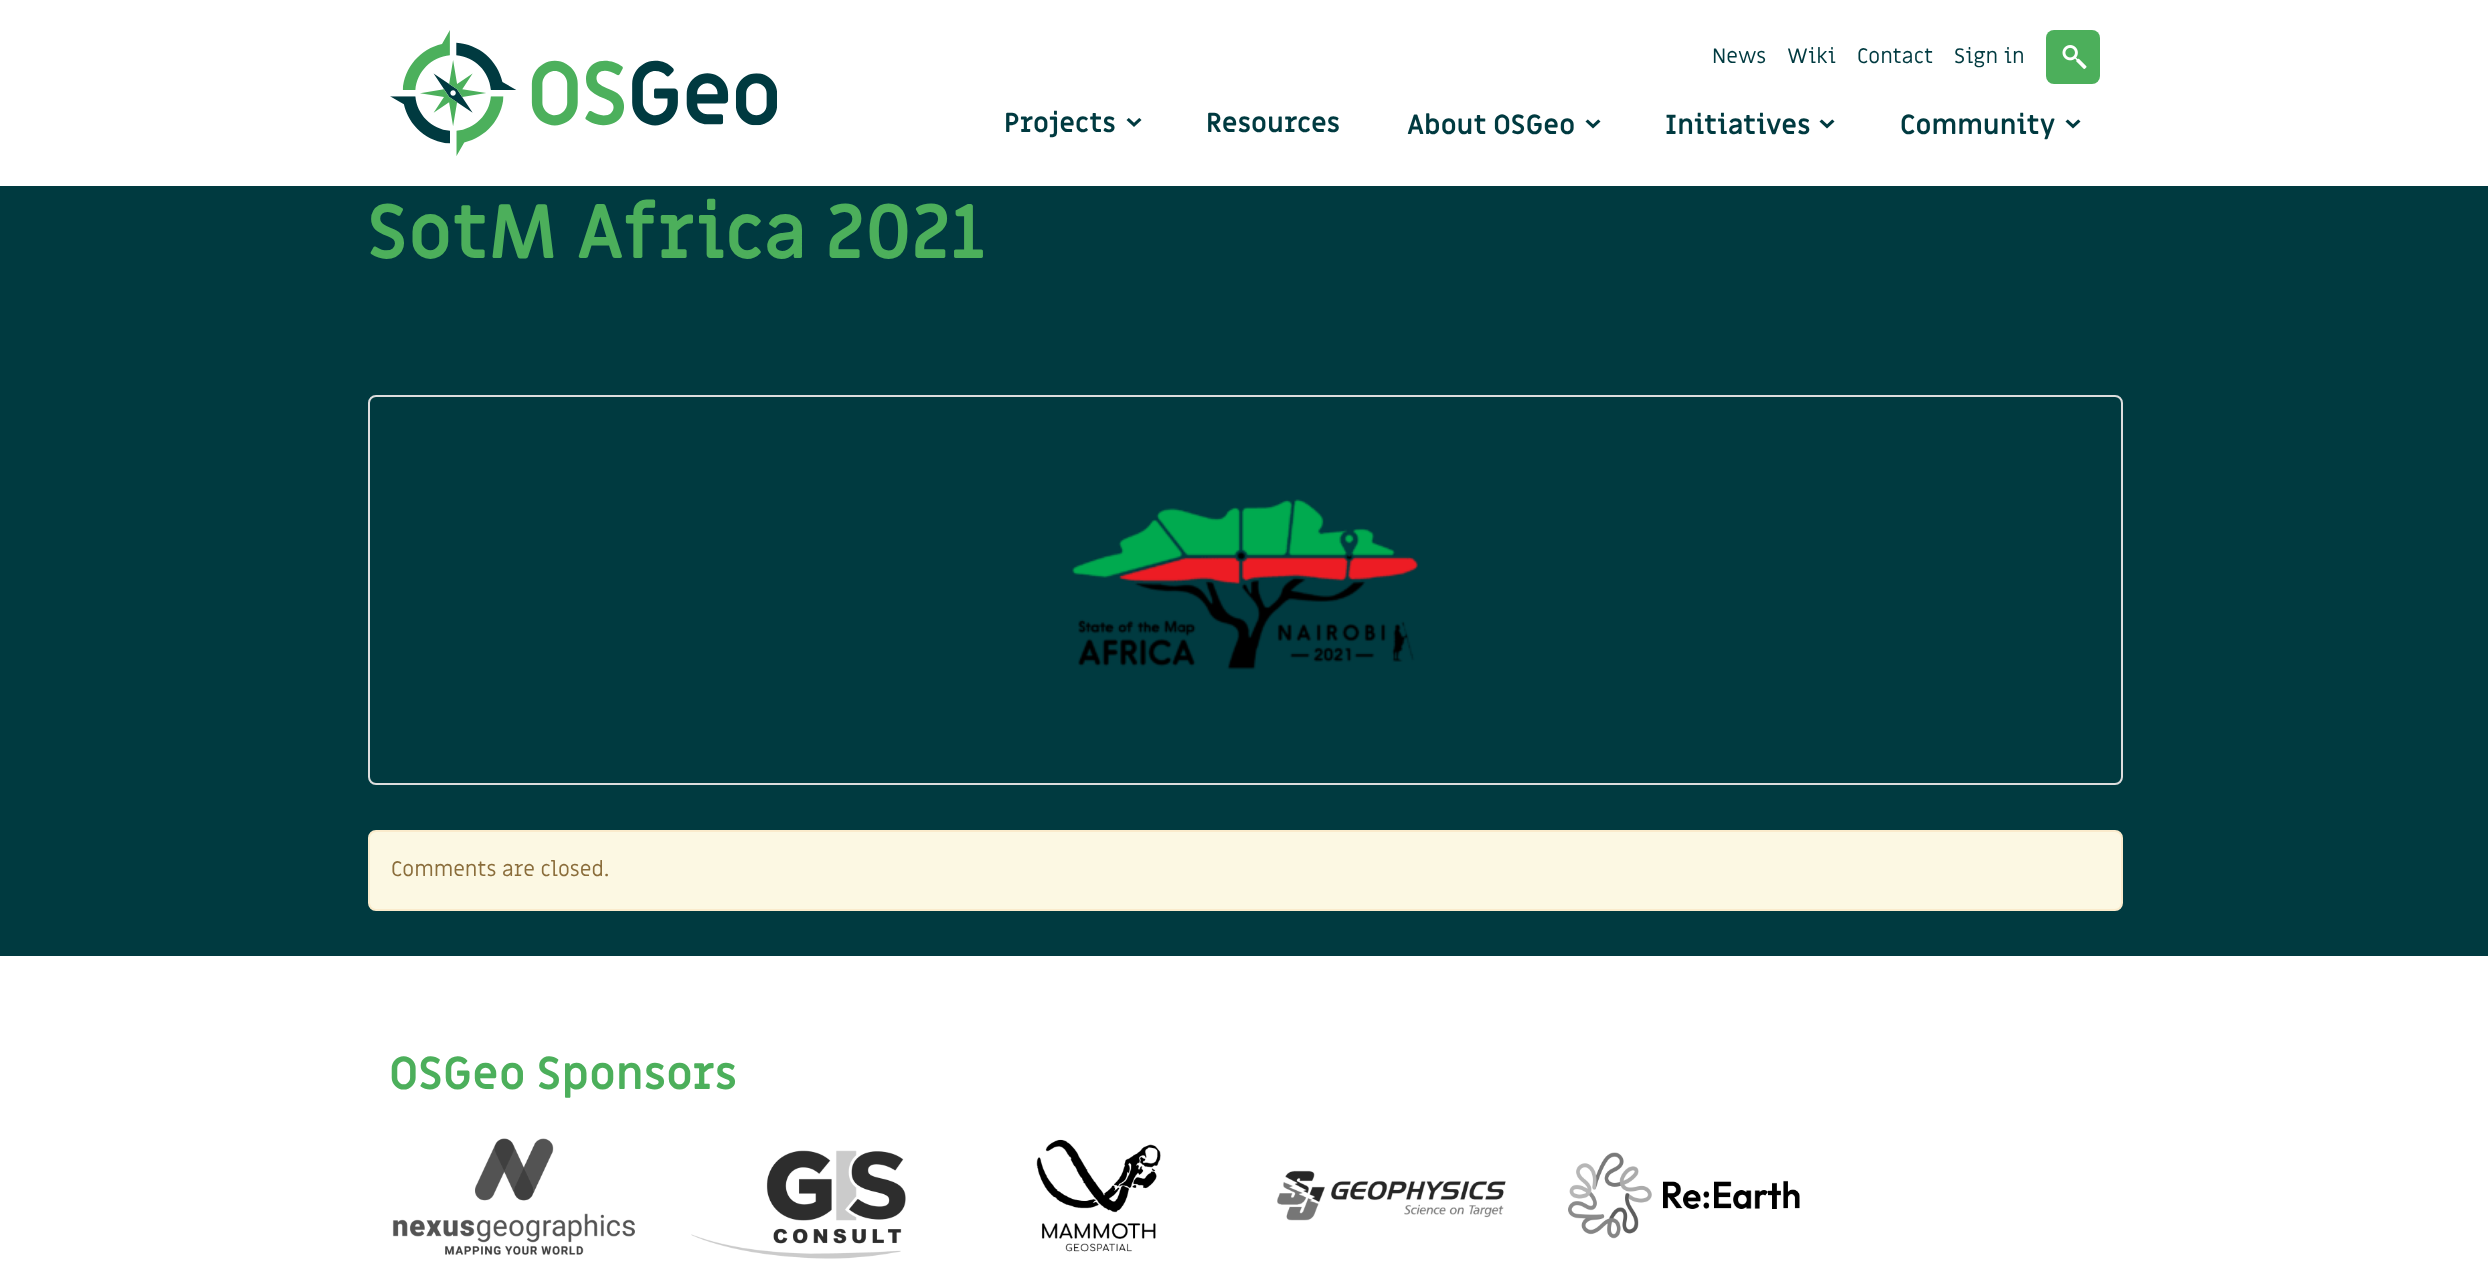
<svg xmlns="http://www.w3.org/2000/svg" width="2488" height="1263">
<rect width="100%" height="100%" fill="#003a40"/>
<rect width="2488" height="186" fill="#fff"/>
<image x="390" y="30" width="387" height="126" href="media/1.png"/>
<text x="1712" y="63" style="font-family:Miriam Libre;font-size:21px;fill:#003a40">News</text>
<text x="1787" y="63" style="font-family:Miriam Libre;font-size:21px;fill:#003a40">Wiki</text>
<text x="1857" y="63" style="font-family:Miriam Libre;font-size:21px;fill:#003a40">Contact</text>
<text x="1954" y="63" style="font-family:Miriam Libre;font-size:21px;fill:#003a40">Sign in</text>
<rect x="2046" y="30" width="54" height="54" rx="8" fill="#4caf5b"/>
<image x="2062" y="45" width="25" height="24" href="media/2.png"/>
<text x="1004" y="132" style="font-family:Miriam Libre;font-size:27px;font-weight:bold;fill:#003a40">Projects</text>
<image x="1126" y="118" width="16" height="9" href="media/3.png"/>
<text x="1206" y="132" style="font-family:Miriam Libre;font-size:27px;font-weight:bold;fill:#003a40">Resources</text>
<text x="1407" y="134" style="font-family:Miriam Libre;font-size:27px;font-weight:bold;fill:#003a40">About OSGeo</text>
<image x="1585" y="119" width="16" height="10" href="media/4.png"/>
<text x="1665" y="134" style="font-family:Miriam Libre;font-size:27px;font-weight:bold;fill:#003a40">Initiatives</text>
<image x="1819" y="119" width="16" height="10" href="media/4.png"/>
<text x="1900" y="134" style="font-family:Miriam Libre;font-size:27px;font-weight:bold;fill:#003a40">Community</text>
<image x="2065" y="119" width="16" height="10" href="media/4.png"/>
<text x="367" y="258" style="font-family:Miriam Libre;font-size:75px;font-weight:bold;fill:#4caf5b">SotM Africa 2021</text>
<rect x="369" y="396" width="1753" height="388" rx="7" fill="none" stroke="#ddd" stroke-width="2"/>
<image x="1072" y="499" width="346" height="171" href="media/5.png"/>
<rect x="369" y="831" width="1753" height="79" rx="7" fill="#fcf8e3" stroke="#faebcc" stroke-width="2"/>
<text x="391" y="876" style="font-family:Miriam Libre;font-size:21px;fill:#8a6d3b">Comments are closed.</text>
<rect y="956" width="2488" height="307" fill="#fff"/>
<text x="389" y="1089" style="font-family:Miriam Libre;font-size:45px;font-weight:bold;fill:#4caf5b">OSGeo Sponsors</text>
<image x="392" y="1138" width="243" height="117" href="media/6.png"/>
<image x="691" y="1150" width="215" height="109" href="media/7.png"/>
<image x="1036" y="1139" width="125" height="113" href="media/8.png"/>
<image x="1277" y="1170" width="229" height="51" href="media/9.png"/>
<image x="1568" y="1152" width="232" height="87" href="media/10.png"/>
</svg>
